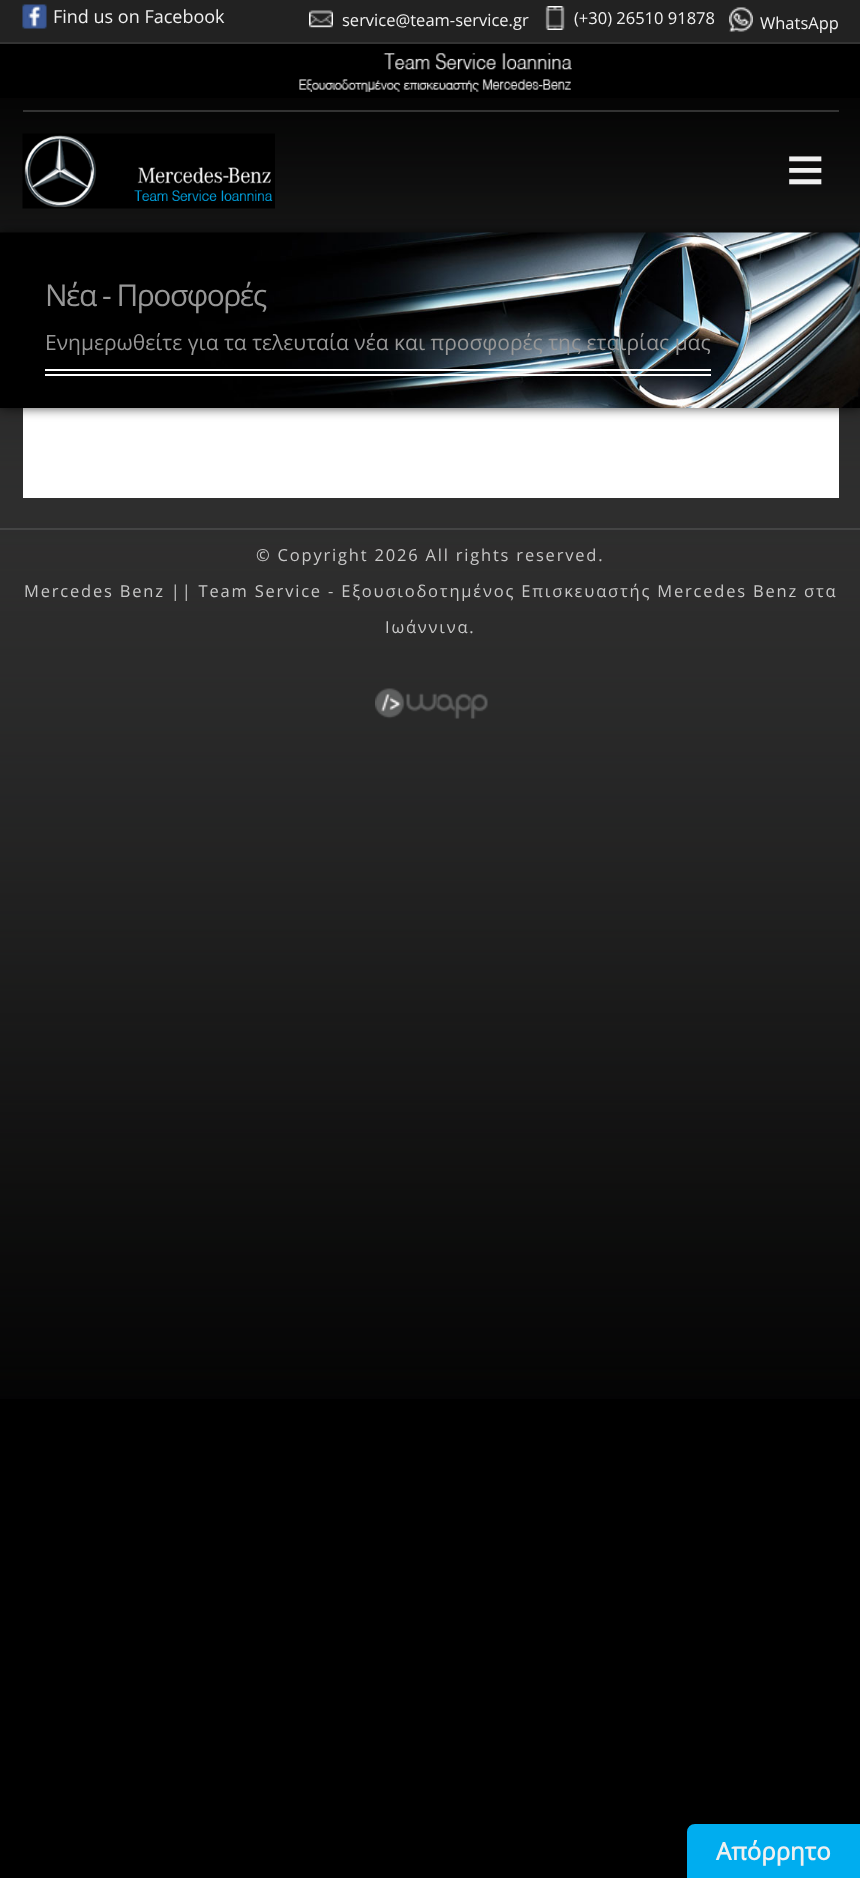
<svg xmlns="http://www.w3.org/2000/svg" width="860" height="1878">
<rect width="100%" height="100%" fill="#000"/>
<image x="0" y="98" width="860" height="1301" href="media/1.png"/>
<rect width="860" height="42" fill="#222"/>
<rect y="42" width="860" height="2" fill="#333"/>
<image x="22" y="4" width="25" height="25" href="media/2.png"/>
<text x="53" y="23" style="font-family:Open Sans;font-size:18px;fill:#f0f0f0">Find us on Facebook</text>
<image x="309" y="10" width="24" height="18" href="media/3.png"/>
<text x="342" y="26" style="font-family:Open Sans;font-size:16.5px;fill:#f0f0f0">service@team-service.gr</text>
<image x="545" y="6" width="20" height="24" href="media/4.png"/>
<text x="574" y="24" style="font-family:Open Sans;font-size:16.5px;fill:#f0f0f0">(+30) 26510 91878</text>
<image x="729" y="7" width="24" height="25" href="media/5.png"/>
<text x="760" y="29" style="font-family:Open Sans;font-size:16.5px;fill:#f0f0f0">WhatsApp</text>
<rect x="23" y="110" width="816" height="2" fill="#333"/>
<image x="299" y="53" width="273" height="39" href="media/6.png"/>
<image x="22" y="133" width="253" height="76" href="media/7.png"/>
<text x="786" y="192" style="font-family:Liberation Sans;font-size:66px;fill:#f0f0f0">≡</text>
<rect x="23" y="408" width="816" height="90" fill="#fff"/>
<rect y="233" width="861" height="175" fill="#000000b3" filter="blur(6px)"/>
<image x="0" y="232" width="860" height="176" href="media/8.png"/>
<text x="45" y="306" style="font-family:Open Sans;font-size:30px;letter-spacing:-1.5px;fill:#979797">Νέα - Προσφορές</text>
<rect x="45" y="369" width="666" height="2" fill="#fff"/>
<rect x="45" y="374" width="666" height="2" fill="#fff"/>
<text x="45" y="350" style="font-family:Open Sans;font-size:21px;fill:#979797">Ενημερωθείτε για τα τελευταία νέα και προσφορές της εταιρίας μας</text>
<rect y="528" width="860" height="2" fill="#444"/>
<text x="256" y="561" style="font-family:Open Sans;font-size:16.5px;letter-spacing:1.8px;fill:#c8c8c8">© Copyright 2026 All rights reserved.</text>
<text x="24" y="597" style="font-family:Open Sans;font-size:16.5px;letter-spacing:1.8px;fill:#c8c8c8">Mercedes Benz || Team Service - Εξουσιοδοτημένος Επισκευαστής Mercedes Benz στα</text>
<text x="385" y="633" style="font-family:Open Sans;font-size:16.5px;letter-spacing:1.8px;fill:#c8c8c8">Ιωάννινα.</text>
<image x="375" y="688" width="113" height="31" href="media/9.png"/>
<path d="M695 1825h165v52h-172v-45c0-4 3-7 7-7z" fill="#00adef" stroke="#00adef" stroke-width="2"/>
<text x="716" y="1860" style="font-family:Open Sans;font-size:24px;font-weight:bold;fill:#f0f0f0">Απόρρητο</text>
</svg>
